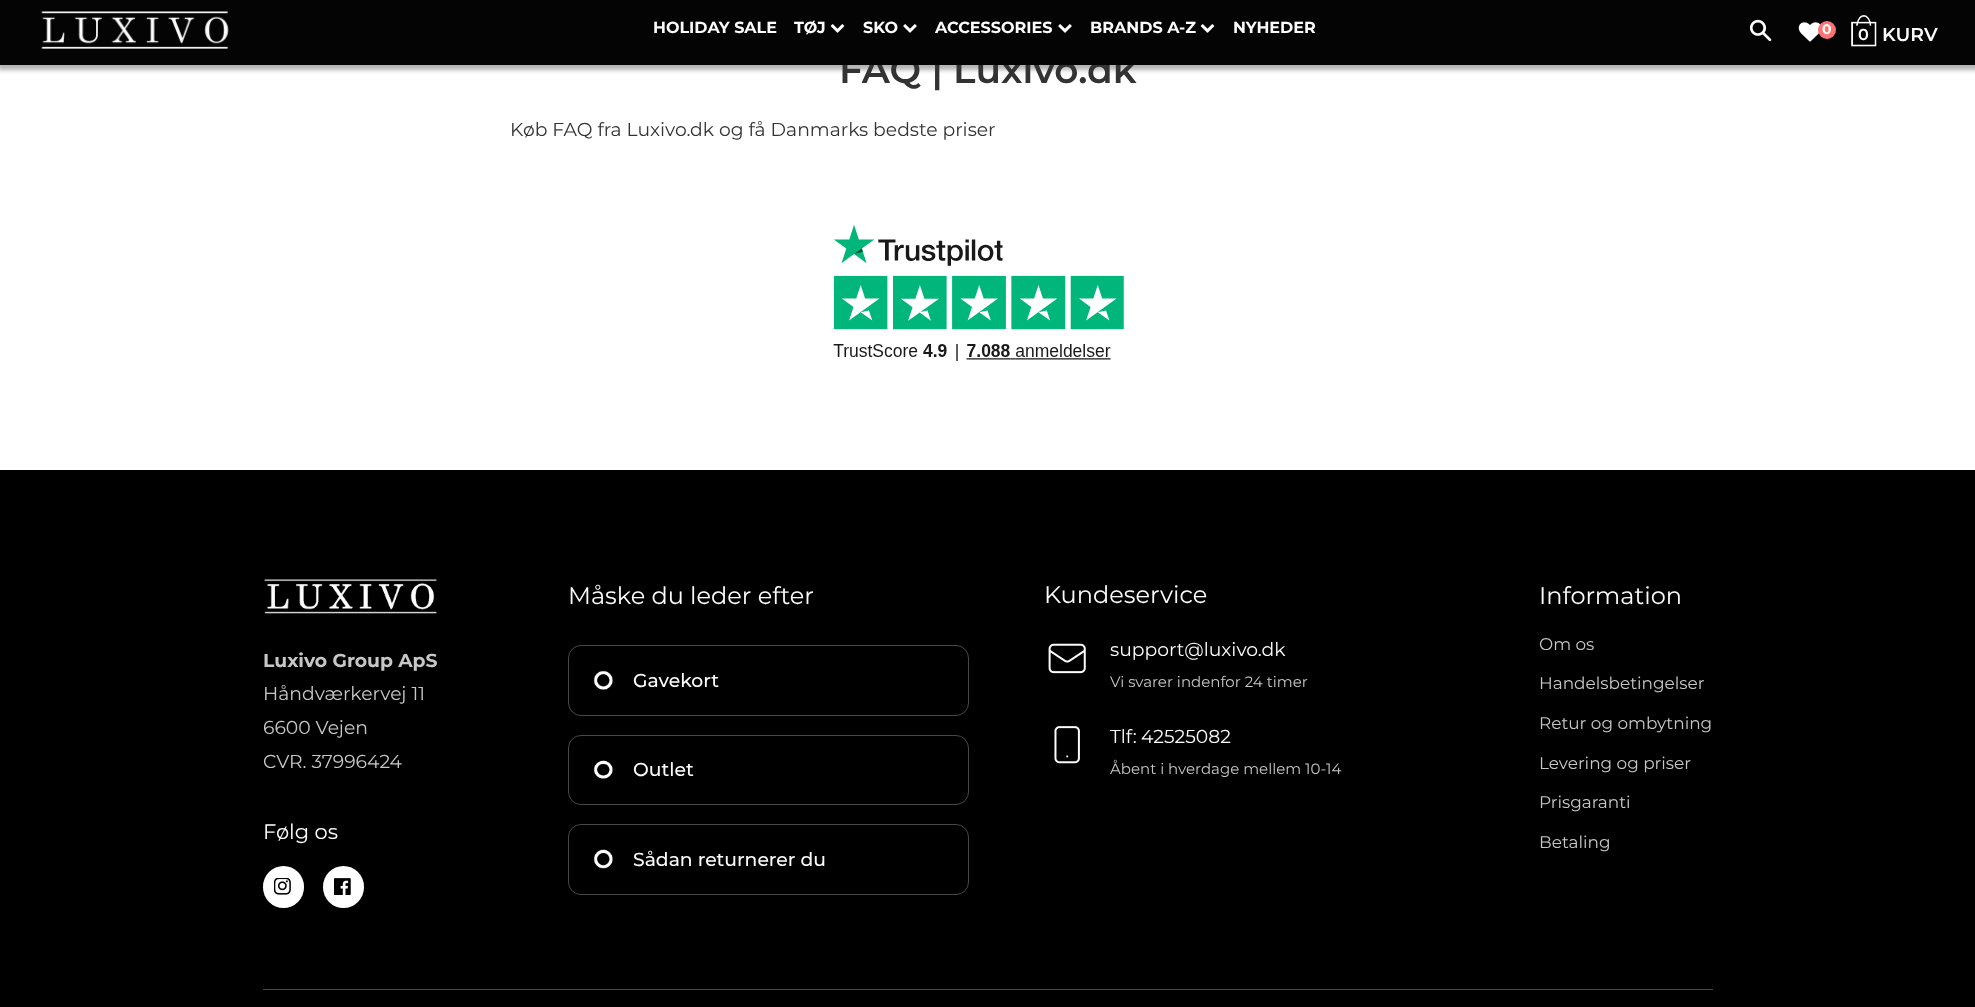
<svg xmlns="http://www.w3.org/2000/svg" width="1975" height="1007">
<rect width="100%" height="100%" fill="#fff"/>
<rect x="-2" y="-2" width="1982" height="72" fill="#0000004d" filter="blur(2px)"/>
<text x="839" y="83" style="font-family:Montserrat;font-size:37.5px;font-weight:600;fill:#333">FAQ | Luxivo.dk</text>
<rect width="1975" height="65" fill="#040404"/>
<image x="41" y="11" width="188" height="38" href="media/1.png"/>
<text x="653" y="33" style="font-family:Montserrat;font-size:16px;font-weight:bold;fill:#fcfcfc">HOLIDAY SALE</text>
<text x="794" y="33" style="font-family:Montserrat;font-size:16px;font-weight:bold;fill:#fcfcfc">TØJ</text>
<image x="830" y="24" width="15" height="9" href="media/2.png"/>
<text x="863" y="33" style="font-family:Montserrat;font-size:16px;font-weight:bold;fill:#fcfcfc">SKO</text>
<image x="903" y="24" width="14" height="9" href="media/3.png"/>
<text x="935" y="33" style="font-family:Montserrat;font-size:16px;font-weight:bold;fill:#fcfcfc">ACCESSORIES</text>
<image x="1058" y="24" width="14" height="9" href="media/3.png"/>
<text x="1090" y="33" style="font-family:Montserrat;font-size:16px;font-weight:bold;fill:#fcfcfc">BRANDS A-Z</text>
<image x="1200" y="24" width="15" height="9" href="media/2.png"/>
<text x="1233" y="33" style="font-family:Montserrat;font-size:16px;font-weight:bold;fill:#fcfcfc">NYHEDER</text>
<image x="1749" y="19" width="23" height="23" href="media/4.png"/>
<image x="1798" y="22" width="23" height="20" href="media/5.png"/>
<circle cx="1827" cy="30" r="9" fill="#fc7373"/>
<text x="1822" y="34" style="font-family:Montserrat;font-size:14px;font-weight:bold;fill:#fcfcfc">0</text>
<image x="1851" y="15" width="26" height="32" href="media/6.png"/>
<text x="1882" y="41" style="font-family:Montserrat;font-size:18.75px;font-weight:600;fill:#fcfcfc">KURV</text>
<text x="1858" y="40" style="font-family:Montserrat;font-size:16px;font-weight:600;fill:#fcfcfc">0</text>
<text x="510" y="136" style="font-family:Montserrat;font-size:18.75px;fill:#333">Køb FAQ fra Luxivo.dk og få Danmarks bedste priser</text>
<image x="833" y="225" width="291" height="136" href="media/7.png"/>
<rect y="470" width="1975" height="537" fill="#000"/>
<image x="264" y="579" width="173" height="35" href="media/8.png"/>
<text x="263" y="667" style="font-family:Montserrat;font-size:18.75px;font-weight:bold;fill:#c7c7c7">Luxivo Group ApS</text>
<text x="263" y="700" style="font-family:Montserrat;font-size:18.75px;fill:#c7c7c7">Håndværkervej 11</text>
<text x="263" y="734" style="font-family:Montserrat;font-size:18.75px;fill:#c7c7c7">6600 Vejen</text>
<text x="263" y="768" style="font-family:Montserrat;font-size:18.75px;fill:#c7c7c7">CVR. 37996424</text>
<text x="263" y="839" style="font-family:Montserrat;font-size:21px;fill:#fcfcfc">Følg os</text>
<rect x="263" y="866" width="41" height="42" rx="20.5" fill="#fff"/>
<image x="274" y="878" width="17" height="17" href="media/9.png"/>
<rect x="323" y="866" width="41" height="42" rx="20.5" fill="#fff"/>
<image x="334" y="878" width="17" height="17" href="media/10.png"/>
<text x="568" y="604" style="font-family:Montserrat;font-size:24px;fill:#fcfcfc">Måske du leder efter</text>
<rect x="568.5" y="645.5" width="400" height="70" rx="12.5" fill="none" stroke="#484848"/>
<image x="593" y="670" width="20" height="20" href="media/11.png"/>
<text x="633" y="687" style="font-family:Montserrat;font-size:18.75px;font-weight:500;fill:#fcfcfc">Gavekort</text>
<rect x="568.5" y="735.5" width="400" height="69" rx="12.5" fill="none" stroke="#484848"/>
<image x="593" y="760" width="20" height="19" href="media/12.png"/>
<text x="633" y="776" style="font-family:Montserrat;font-size:18.75px;font-weight:500;fill:#fcfcfc">Outlet</text>
<rect x="568.5" y="824.5" width="400" height="70" rx="12.5" fill="none" stroke="#484848"/>
<image x="593" y="849" width="20" height="20" href="media/13.png"/>
<text x="633" y="866" style="font-family:Montserrat;font-size:18.75px;font-weight:500;fill:#fcfcfc">Sådan returnerer du</text>
<text x="1044" y="603" style="font-family:Montserrat;font-size:24px;fill:#fcfcfc">Kundeservice</text>
<image x="1048" y="643" width="38" height="31" href="media/14.png"/>
<text x="1110" y="656" style="font-family:Montserrat;font-size:18.75px;fill:#fcfcfc">support@luxivo.dk</text>
<text x="1110" y="687" style="font-family:Montserrat;font-size:15px;fill:#c7c7c7">Vi svarer indenfor 24 timer</text>
<image x="1054" y="726" width="26" height="38" href="media/15.png"/>
<text x="1110" y="743" style="font-family:Montserrat;font-size:18.75px;fill:#fcfcfc">Tlf:</text>
<text x="1141" y="743" style="font-family:Montserrat;font-size:18.75px;fill:#fcfcfc">42525082</text>
<text x="1110" y="774" style="font-family:Montserrat;font-size:15px;fill:#c7c7c7">Åbent i hverdage mellem 10-14</text>
<text x="1539" y="604" style="font-family:Montserrat;font-size:24px;fill:#fcfcfc">Information</text>
<text x="1539" y="650" style="font-family:Montserrat;font-size:16.9px;fill:#c7c7c7">Om os</text>
<text x="1539" y="689" style="font-family:Montserrat;font-size:16.9px;fill:#c7c7c7">Handelsbetingelser</text>
<text x="1539" y="729" style="font-family:Montserrat;font-size:16.9px;fill:#c7c7c7">Retur og ombytning</text>
<text x="1539" y="769" style="font-family:Montserrat;font-size:16.9px;fill:#c7c7c7">Levering og priser</text>
<text x="1539" y="808" style="font-family:Montserrat;font-size:16.9px;fill:#c7c7c7">Prisgaranti</text>
<text x="1539" y="848" style="font-family:Montserrat;font-size:16.9px;fill:#c7c7c7">Betaling</text>
<rect x="263" y="989" width="1450" height="1" fill="#484848"/>
</svg>
